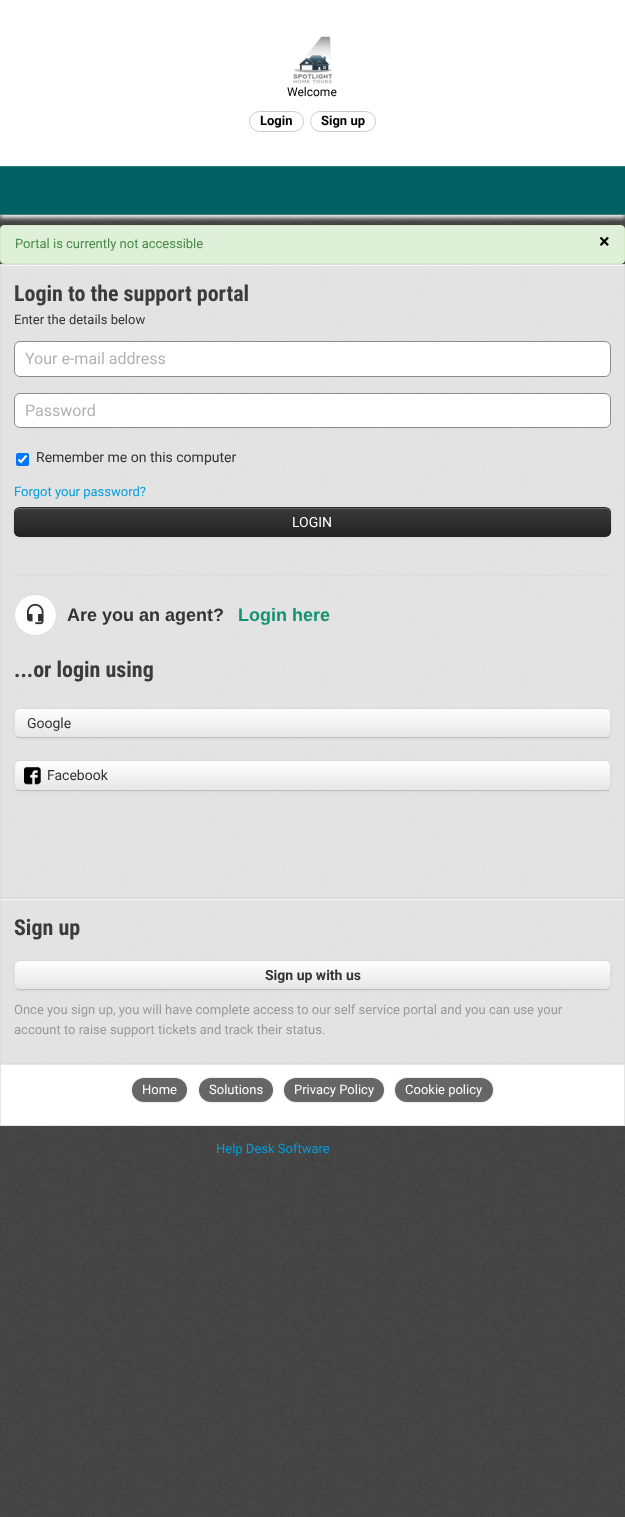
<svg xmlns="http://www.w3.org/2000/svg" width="625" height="1517">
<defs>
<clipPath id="clip1"><rect x="14" y="507" width="597" height="30" rx="6"/></clipPath>
<linearGradient id="g1" gradientUnits="userSpaceOnUse" x1="313" y1="508" x2="313" y2="536"><stop offset="0" stop-color="#3b3b3b"/><stop offset="1" stop-color="#222"/></linearGradient>
<clipPath id="clip2"><rect x="14" y="708" width="597" height="30" rx="6"/></clipPath>
<linearGradient id="g2" gradientUnits="userSpaceOnUse" x1="313" y1="709" x2="313" y2="737"><stop offset="0" stop-color="#fff"/><stop offset="1" stop-color="#e6e6e6"/></linearGradient>
<clipPath id="clip3"><rect x="14" y="760" width="597" height="31" rx="6"/></clipPath>
<linearGradient id="g3" gradientUnits="userSpaceOnUse" x1="313" y1="761" x2="313" y2="790"><stop offset="0" stop-color="#fff"/><stop offset="1" stop-color="#e6e6e6"/></linearGradient>
<clipPath id="clip4"><rect x="14" y="960" width="597" height="30" rx="6"/></clipPath>
<linearGradient id="g4" gradientUnits="userSpaceOnUse" x1="313" y1="961" x2="313" y2="989"><stop offset="0" stop-color="#fff"/><stop offset="1" stop-color="#e6e6e6"/></linearGradient>
</defs>
<rect width="100%" height="100%" fill="#3b3b3b"/>
<image x="0" y="215" width="625" height="1302" href="media/1.png"/>
<rect width="625" height="166" fill="#fff"/>
<image x="293" y="36" width="40" height="48" href="media/2.png"/>
<text x="287" y="96" style="font-family:Roboto;font-size:12px;fill:#000">Welcome</text>
<rect x="249.5" y="111.5" width="54" height="20" rx="10" fill="none" stroke="#ccc"/>
<text x="260" y="125" style="font-family:Roboto;font-size:13px;font-weight:bold;fill:#000">Login</text>
<rect x="310.5" y="111.5" width="65" height="20" rx="10" fill="none" stroke="#ccc"/>
<text x="321" y="125" style="font-family:Roboto;font-size:13px;font-weight:bold;fill:#000">Sign up</text>
<rect y="169" width="625" height="49" fill="#eee" filter="blur(2px)"/>
<rect y="167" width="625" height="47" fill="#006063"/>
<rect y="166" width="625" height="1" fill="#338082"/>
<rect y="214" width="625" height="1" fill="#338082"/>
<rect x="0.5" y="225.5" width="624" height="38" rx="3.5" fill="#dff0d8" stroke="#d6e9c6"/>
<text x="15" y="248" style="font-family:Roboto;font-size:13px;fill:#468847">Portal is currently not accessible</text>
<text x="599" y="248" style="font-family:Roboto;font-size:20px;font-weight:bold;fill:#000">×</text>
<rect x="1" y="266" width="623" height="631" fill="#f4f4f4e6"/>
<rect x="1" y="265" width="623" height="1" fill="#f6f6f6"/>
<rect x="0.5" y="264.5" width="624" height="633" fill="none" stroke="#dcdcdc"/>
<text x="14" y="301" style="font-family:Roboto Condensed;font-size:22px;font-weight:bold;fill:#3b3b3b">Login to the support portal</text>
<text x="14" y="324" style="font-family:Roboto;font-size:13px;fill:#333">Enter the details below</text>
<rect x="14.5" y="341.5" width="596" height="35" rx="5.5" fill="#fff" stroke="#8c8c8c"/>
<text x="25" y="364" style="font-family:Roboto;font-size:16px;fill:#b2b2b2">Your e-mail address</text>
<rect x="14.5" y="393.5" width="596" height="34" rx="5.5" fill="#fff" stroke="#8c8c8c"/>
<text x="25" y="416" style="font-family:Roboto;font-size:16px;fill:#b2b2b2">Password</text>
<rect x="16" y="453" width="13" height="13" rx="2" fill="#0075ff"/>
<path d="M18.5 459.5l2.5 2.5l5.5-6.5" fill="none" stroke="#fff" stroke-width="2.1"/>
<text x="36" y="462" style="font-family:Roboto;font-size:14px;fill:#333">Remember me on this computer</text>
<text x="14" y="496" style="font-family:Roboto;font-size:13px;fill:#049cdb">Forgot your password?</text>
<rect x="14" y="508" width="597" height="30" rx="6" fill="#0000000d" filter="blur(1px)"/>
<rect x="14" y="507" width="597" height="30" rx="6" fill="#313131"/>
<g clip-path="url(#clip1)">
<rect x="14" y="508" width="597" height="28" fill="url(#g1)"/>
</g>
<path d="M20 509h585c3 0 5 2 5 5v-1c0-3-2-5-5-5h-585c-3 0-5 2-5 5v1c0-3 2-5 5-5z" fill="#626262"/>
<path d="M609 535c-1 1-2.5 1.5-4 1.5h-585c-1.5 0-3-.5-4-1.5" fill="none" stroke="#00000040"/>
<path d="M16 535c-3-3-1.5-9.5-1.5-13c0-4.5-2-14 5-14.5h585.5l3.5 1c3.5 3 2 9.5 2 13.5c0 3.5 1.5 10-1.5 13" fill="none" stroke="#0000001a"/>
<text x="292" y="527" style="font-family:Roboto;font-size:14px;fill:#fff">LOGIN</text>
<rect x="14" y="575" width="597" height="1" fill="#ddd"/>
<rect x="14.5" y="594.5" width="42" height="41" rx="20.5" fill="#fff" stroke="#ddd"/>
<image x="27" y="603" width="17" height="22" href="media/3.png"/>
<text x="67" y="621" style="font-family:Liberation Sans;font-size:18px;font-weight:bold;fill:#333">Are you an agent?</text>
<text x="238" y="621" style="font-family:Liberation Sans;font-size:18px;font-weight:bold;fill:#139272">Login here</text>
<text x="14" y="677" style="font-family:Roboto Condensed;font-size:22px;font-weight:bold;fill:#3b3b3b">...or login using</text>
<rect x="14" y="709" width="597" height="30" rx="6" fill="#0000000d" filter="blur(1px)"/>
<rect x="14" y="708" width="597" height="30" rx="6" fill="#f5f5f5"/>
<g clip-path="url(#clip2)">
<rect x="14" y="709" width="597" height="28" fill="url(#g2)"/>
</g>
<path d="M609 736c-1 1-2.5 1.5-4 1.5h-585c-1.5 0-3-.5-4-1.5" fill="none" stroke="#bfbfbf"/>
<path d="M16 736c-3-3-1.5-9.5-1.5-13c0-4.5-2-14 5-14.5h585.5l3.5 1c3.5 3 2 9.5 2 13.5c0 3.5 1.5 10-1.5 13" fill="none" stroke="#d9d9d9"/>
<text x="27" y="728" style="font-family:Roboto;font-size:14px;fill:#333">Google</text>
<rect x="14" y="761" width="597" height="31" rx="6" fill="#0000000d" filter="blur(1px)"/>
<g clip-path="url(#clip3)">
<rect x="14" y="761" width="597" height="29" fill="url(#g3)"/>
</g>
<path d="M609 789c-1 1-2.5 1.5-4 1.5h-585c-1.5 0-3-.5-4-1.5" fill="none" stroke="#bfbfbf"/>
<path d="M16 789c-3-3-1.5-13-1.5-16.5c0-4.5-1-12 5.5-12h585c7.5 0 5.5 10.5 5.5 15c0 3.5 1.5 10.5-1.5 13.5" fill="none" stroke="#d9d9d9"/>
<image x="24" y="767" width="17" height="18" href="media/4.png"/>
<text x="47" y="780" style="font-family:Roboto;font-size:14px;fill:#333">Facebook</text>
<rect x="1" y="900" width="623" height="163" fill="#f4f4f4e6"/>
<rect x="1" y="899" width="623" height="1" fill="#f6f6f6"/>
<rect x="0.5" y="898.5" width="624" height="165" fill="none" stroke="#dcdcdc"/>
<text x="14" y="935" style="font-family:Roboto Condensed;font-size:22px;font-weight:bold;fill:#3b3b3b">Sign up</text>
<rect x="14" y="961" width="597" height="30" rx="6" fill="#0000000d" filter="blur(1px)"/>
<rect x="14" y="960" width="597" height="30" rx="6" fill="#f5f5f5"/>
<g clip-path="url(#clip4)">
<rect x="14" y="961" width="597" height="28" fill="url(#g4)"/>
</g>
<path d="M609 988c-1 1-2.5 1.5-4 1.5h-585c-1.5 0-3-.5-4-1.5" fill="none" stroke="#bfbfbf"/>
<path d="M16 988c-3-3-1.5-9.5-1.5-13c0-4.5-2-14 5-14.5h585.5l3.5 1c3.5 3 2 9.5 2 13.5c0 3.5 1.5 10-1.5 13" fill="none" stroke="#d9d9d9"/>
<text x="265" y="980" style="font-family:Roboto;font-size:14px;font-weight:bold;fill:#333">Sign up with us</text>
<text x="14" y="1014" style="font-family:Roboto;font-size:13px;fill:#999">Once you sign up, you will have complete access to our self service portal and you can use your</text>
<text x="14" y="1034" style="font-family:Roboto;font-size:13px;fill:#999">account to raise support tickets and track their status.</text>
<rect x="0.5" y="1064.5" width="624" height="61" fill="#fff" stroke="#e6e6e6"/>
<rect x="132" y="1078" width="55" height="24" rx="12" fill="#d1d1d1" filter="blur(1px)"/>
<rect x="132" y="1078" width="55" height="24" rx="12" fill="#666"/>
<text x="142" y="1094" style="font-family:Roboto;font-size:13px;fill:#fff">Home</text>
<rect x="199" y="1078" width="74" height="24" rx="12" fill="#d1d1d1" filter="blur(1px)"/>
<rect x="199" y="1078" width="74" height="24" rx="12" fill="#666"/>
<text x="209" y="1094" style="font-family:Roboto;font-size:13px;fill:#fff">Solutions</text>
<rect x="284" y="1078" width="100" height="24" rx="12" fill="#d1d1d1" filter="blur(1px)"/>
<rect x="284" y="1078" width="100" height="24" rx="12" fill="#666"/>
<text x="294" y="1094" style="font-family:Roboto;font-size:13px;fill:#fff">Privacy Policy</text>
<rect x="395" y="1078" width="98" height="24" rx="12" fill="#d1d1d1" filter="blur(1px)"/>
<rect x="395" y="1078" width="98" height="24" rx="12" fill="#666"/>
<text x="405" y="1094" style="font-family:Roboto;font-size:13px;fill:#fff">Cookie policy</text>
<text x="216" y="1153" style="font-family:Roboto;font-size:13px;fill:#049cdb">Help Desk Software</text>
</svg>
